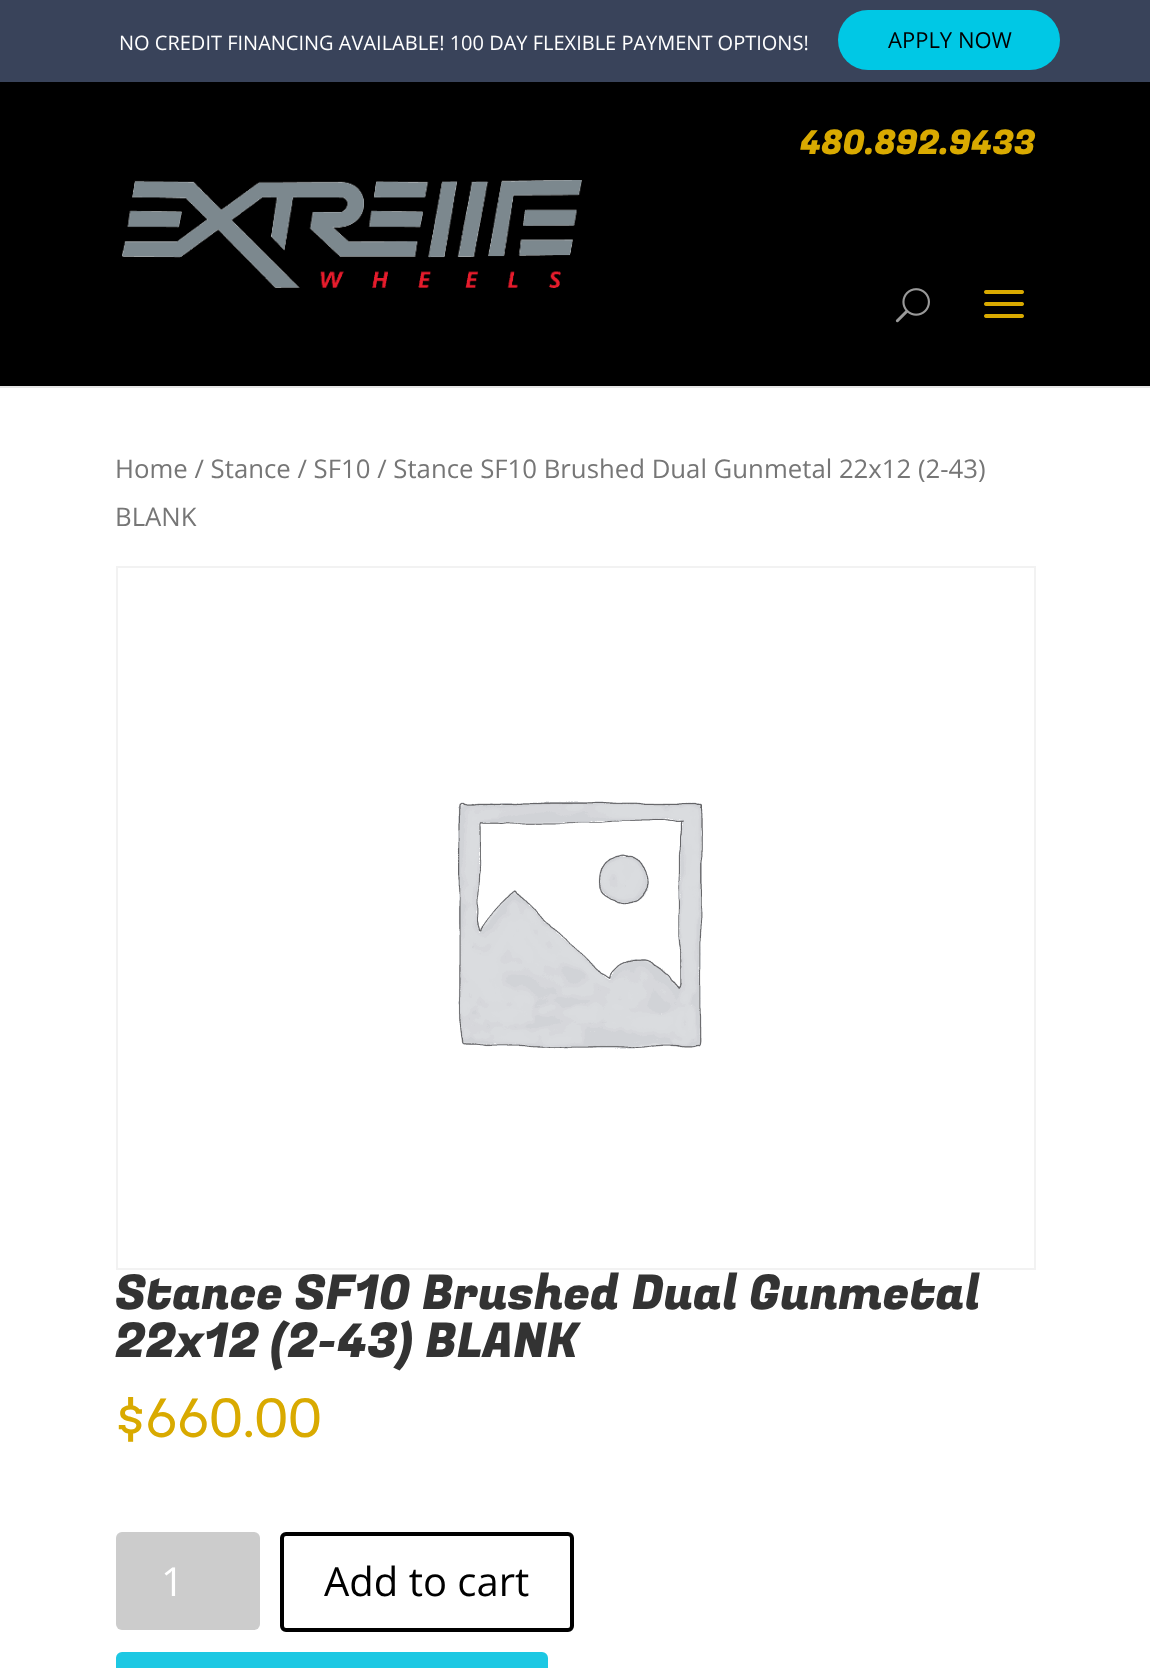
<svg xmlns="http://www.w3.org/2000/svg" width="1150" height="1668">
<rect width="100%" height="100%" fill="#fff"/>
<rect y="386" width="1150" height="2" fill="#e6e6e6"/>
<rect y="82" width="1150" height="304" fill="#000"/>
<rect width="1150" height="82" fill="#39435a"/>
<text x="119" y="50" style="font-family:Open Sans;font-size:20px;fill:#fff">NO CREDIT FINANCING AVAILABLE! 100 DAY FLEXIBLE PAYMENT OPTIONS!</text>
<rect x="838" y="10" width="222" height="60" rx="30" fill="#00c8e5"/>
<text x="888" y="48" style="font-family:Open Sans;font-size:22px;fill:#000">APPLY NOW</text>
<text x="800" y="154" style="font-family:Fugaz One;font-size:34px;fill:#d9aa00">480.892.9433</text>
<image x="122" y="180" width="460" height="108" href="media/1.png"/>
<image x="895" y="288" width="35" height="35" href="media/2.png"/>
<image x="984" y="290" width="40" height="28" href="media/3.png"/>
<text x="115" y="478" style="font-family:Open Sans;font-size:25.75px;fill:#767676">Home / Stance / SF10 / Stance SF10 Brushed Dual Gunmetal 22x12 (2-43)</text>
<text x="115" y="526" style="font-family:Open Sans;font-size:25.75px;fill:#767676">BLANK</text>
<rect x="117" y="567" width="918" height="702" fill="none" stroke="#f2f2f2" stroke-width="2"/>
<image x="457" y="801" width="246" height="248" href="media/4.png"/>
<text x="115" y="1309" style="font-family:Fugaz One;font-size:48px;fill:#333">Stance SF10 Brushed Dual Gunmetal</text>
<text x="115" y="1357" style="font-family:Fugaz One;font-size:48px;fill:#333">22x12 (2-43) BLANK</text>
<text x="115" y="1437" style="font-family:Arvo;font-size:52px;fill:#d9aa00">$660.00</text>
<rect x="116" y="1532" width="144" height="98" rx="6" fill="#ccc"/>
<text x="161" y="1596" style="font-family:Open Sans;font-size:40px;fill:#fff">1</text>
<rect x="282" y="1534" width="290" height="96" rx="4" fill="none" stroke="#000" stroke-width="4"/>
<text x="324" y="1596" style="font-family:Open Sans;font-size:40px;fill:#000">Add to cart</text>
<rect x="118" y="1654" width="428" height="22" rx="4" fill="#1dc8e3" stroke="#1dc8e3" stroke-width="4"/>
</svg>
